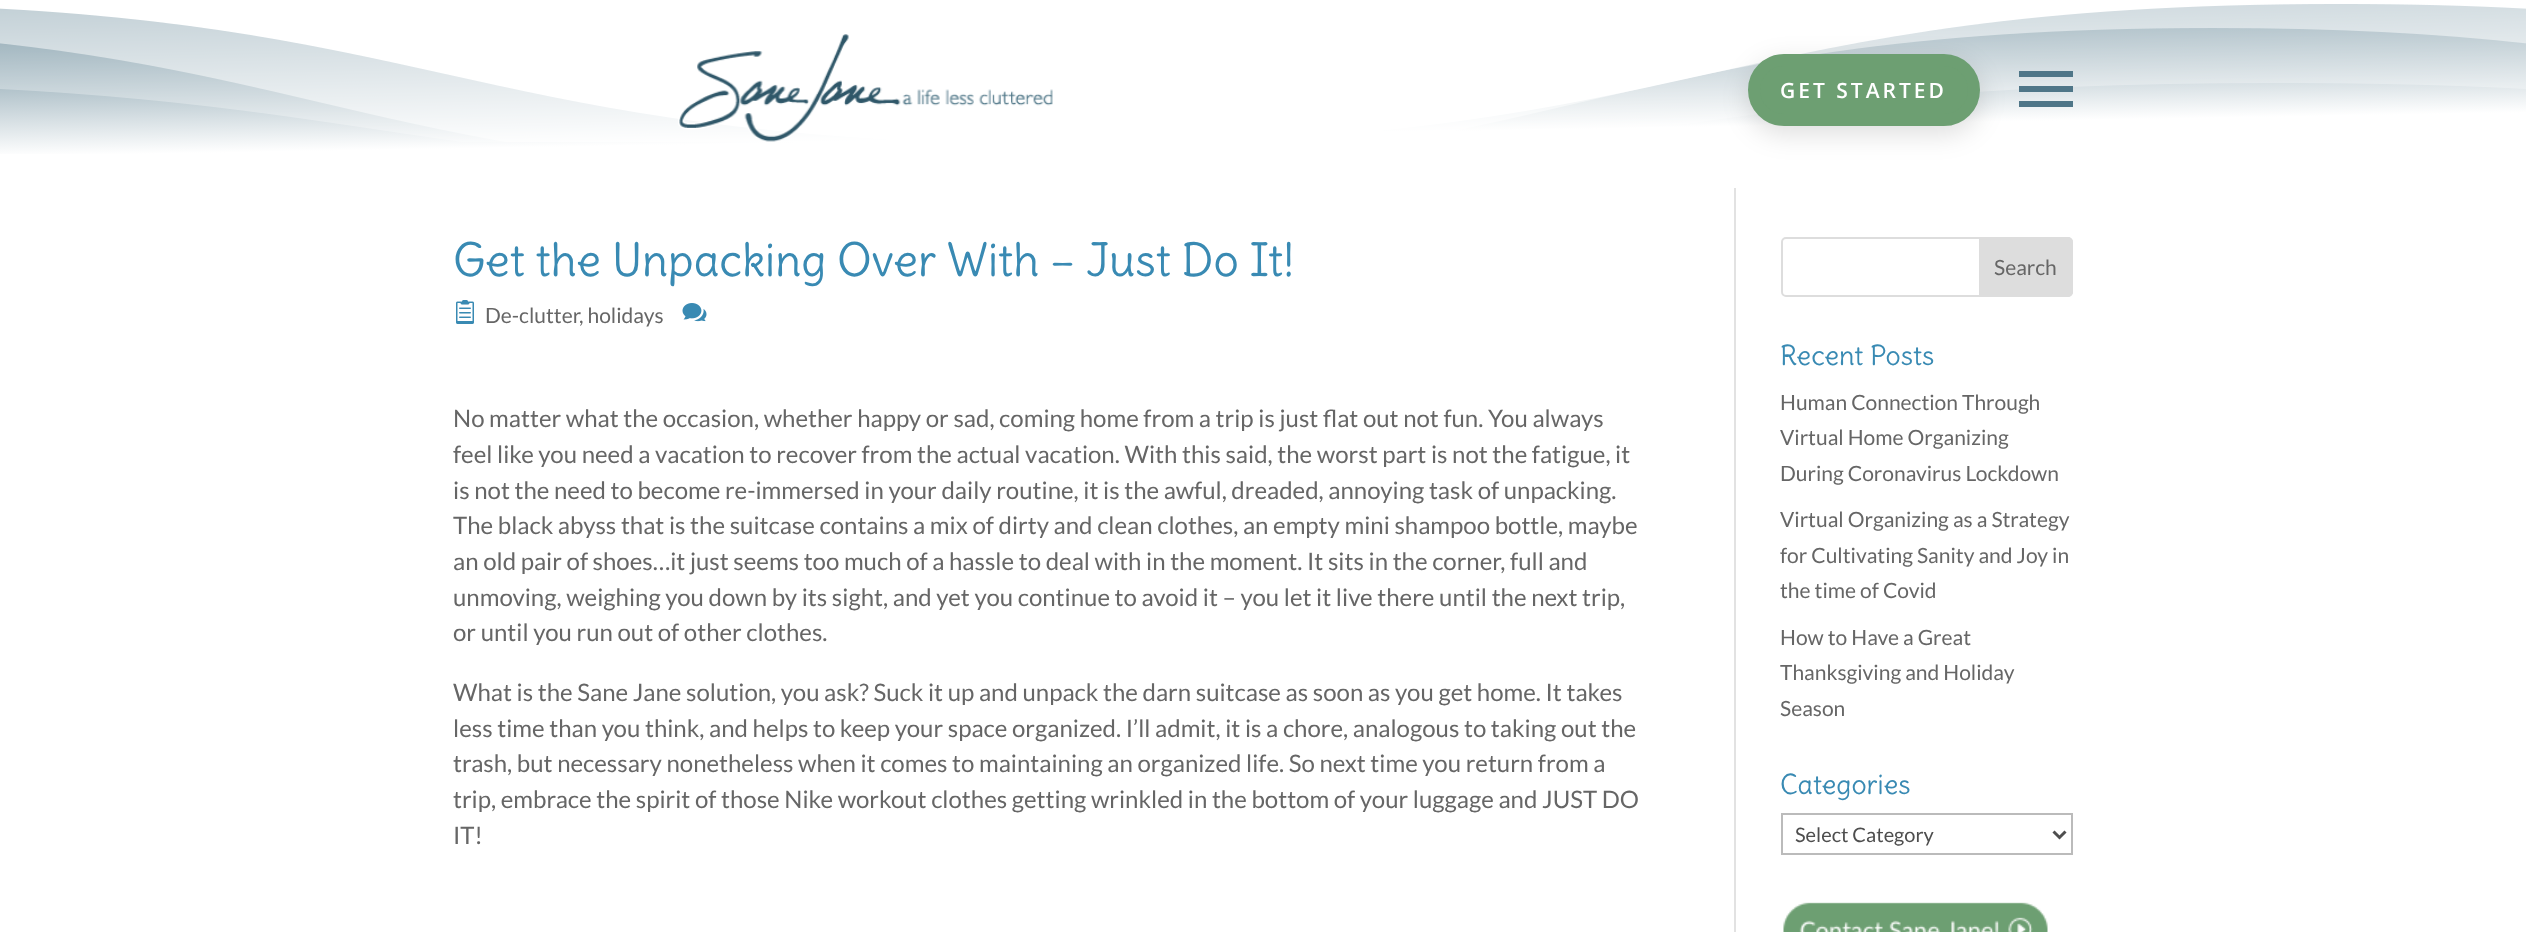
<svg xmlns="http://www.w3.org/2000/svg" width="2526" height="932">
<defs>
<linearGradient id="g1" gradientUnits="userSpaceOnUse" x1="1261" y1="-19" x2="1265" y2="210"><stop offset="0" stop-color="#4f7688"/><stop offset="0.67" stop-color="#fff"/></linearGradient>
</defs>
<rect width="100%" height="100%" fill="#fff"/>
<rect y="4" width="2526" height="150" fill="url(#g1)"/>
<image x="0" y="3" width="2526" height="139" href="media/1.png"/>
<image x="678" y="34" width="375" height="108" href="media/2.png"/>
<rect x="2019" y="71" width="54" height="6" fill="#4f7688"/>
<rect x="2019" y="86" width="54" height="6" fill="#4f7688"/>
<rect x="2019" y="101" width="54" height="6" fill="#4f7688"/>
<rect x="1748" y="62" width="232" height="72" rx="36" fill="#00000021" filter="blur(13.5px)"/>
<rect x="1754" y="60" width="220" height="60" rx="30" fill="#6d9f72" stroke="#6d9f72" stroke-width="12"/>
<text x="1780" y="98" style="font-family:Open Sans;font-size:21px;font-weight:600;letter-spacing:3px;fill:#fff">GET STARTED</text>
<rect x="1734" y="188" width="2" height="744" fill="#e2e2e2"/>
<text x="453" y="276" style="font-family:Delius;font-size:45px;fill:#398ab3">Get the Unpacking Over With – Just Do It!</text>
<image x="456" y="300" width="18" height="24" href="media/3.png"/>
<text x="485" y="323" style="font-family:Lato;font-size:21px;fill:#666">De-clutter</text>
<text x="579" y="323" style="font-family:Lato;font-size:21px;fill:#666">, holidays</text>
<image x="682" y="303" width="25" height="19" href="media/4.png"/>
<text x="453" y="427" style="font-family:Lato;font-size:24px;fill:#666">No matter what the occasion, whether happy or sad, coming home from a trip is just flat out not fun. You always</text>
<text x="453" y="463" style="font-family:Lato;font-size:24px;fill:#666">feel like you need a vacation to recover from the actual vacation. With this said, the worst part is not the fatigue, it</text>
<text x="453" y="499" style="font-family:Lato;font-size:24px;fill:#666">is not the need to become re-immersed in your daily routine, it is the awful, dreaded, annoying task of unpacking.</text>
<text x="453" y="534" style="font-family:Lato;font-size:24px;fill:#666">The black abyss that is the suitcase contains a mix of dirty and clean clothes, an empty mini shampoo bottle, maybe</text>
<text x="453" y="570" style="font-family:Lato;font-size:24px;fill:#666">an old pair of shoes…it just seems too much of a hassle to deal with in the moment. It sits in the corner, full and</text>
<text x="453" y="606" style="font-family:Lato;font-size:24px;fill:#666">unmoving, weighing you down by its sight, and yet you continue to avoid it – you let it live there until the next trip,</text>
<text x="453" y="641" style="font-family:Lato;font-size:24px;fill:#666">or until you run out of other clothes.</text>
<text x="453" y="701" style="font-family:Lato;font-size:24px;fill:#666">What is the Sane Jane solution, you ask? Suck it up and unpack the darn suitcase as soon as you get home. It takes</text>
<text x="453" y="737" style="font-family:Lato;font-size:24px;fill:#666">less time than you think, and helps to keep your space organized. I’ll admit, it is a chore, analogous to taking out the</text>
<text x="453" y="772" style="font-family:Lato;font-size:24px;fill:#666">trash, but necessary nonetheless when it comes to maintaining an organized life. So next time you return from a</text>
<text x="453" y="808" style="font-family:Lato;font-size:24px;fill:#666">trip, embrace the spirit of those Nike workout clothes getting wrinkled in the bottom of your luggage and JUST DO</text>
<text x="453" y="844" style="font-family:Lato;font-size:24px;fill:#666">IT!</text>
<rect x="1782" y="238" width="290" height="58" rx="4" fill="none" stroke="#ddd" stroke-width="2"/>
<path d="M1980 238h88c2 0 4 2 4 4v50c0 2-2 4-4 4h-88z" fill="#ddd" stroke="#ddd" stroke-width="2"/>
<text x="1994" y="275" style="font-family:Lato;font-size:21px;fill:#666">Search</text>
<text x="1780" y="365" style="font-family:Delius;font-size:27px;fill:#398ab3">Recent Posts</text>
<text x="1780" y="410" style="font-family:Lato;font-size:21px;fill:#666">Human Connection Through</text>
<text x="1780" y="445" style="font-family:Lato;font-size:21px;fill:#666">Virtual Home Organizing</text>
<text x="1780" y="481" style="font-family:Lato;font-size:21px;fill:#666">During Coronavirus Lockdown</text>
<text x="1780" y="527" style="font-family:Lato;font-size:21px;fill:#666">Virtual Organizing as a Strategy</text>
<text x="1780" y="563" style="font-family:Lato;font-size:21px;fill:#666">for Cultivating Sanity and Joy in</text>
<text x="1780" y="598" style="font-family:Lato;font-size:21px;fill:#666">the time of Covid</text>
<text x="1780" y="645" style="font-family:Lato;font-size:21px;fill:#666">How to Have a Great</text>
<text x="1780" y="680" style="font-family:Lato;font-size:21px;fill:#666">Thanksgiving and Holiday</text>
<text x="1780" y="716" style="font-family:Lato;font-size:21px;fill:#666">Season</text>
<text x="1780" y="794" style="font-family:Delius;font-size:27px;fill:#398ab3">Categories</text>
<rect x="1782" y="814" width="290" height="40" fill="none" stroke="#bbb" stroke-width="2"/>
<path d="M2053.5 831.5l6 6l6-6" fill="none" stroke="#4e4e4e" stroke-width="3"/>
<text x="1795" y="842" style="font-family:Lato;font-size:20px;fill:#4e4e4e">Select Category</text>
<image x="1783" y="902" width="265" height="30" href="media/5.png"/>
</svg>
